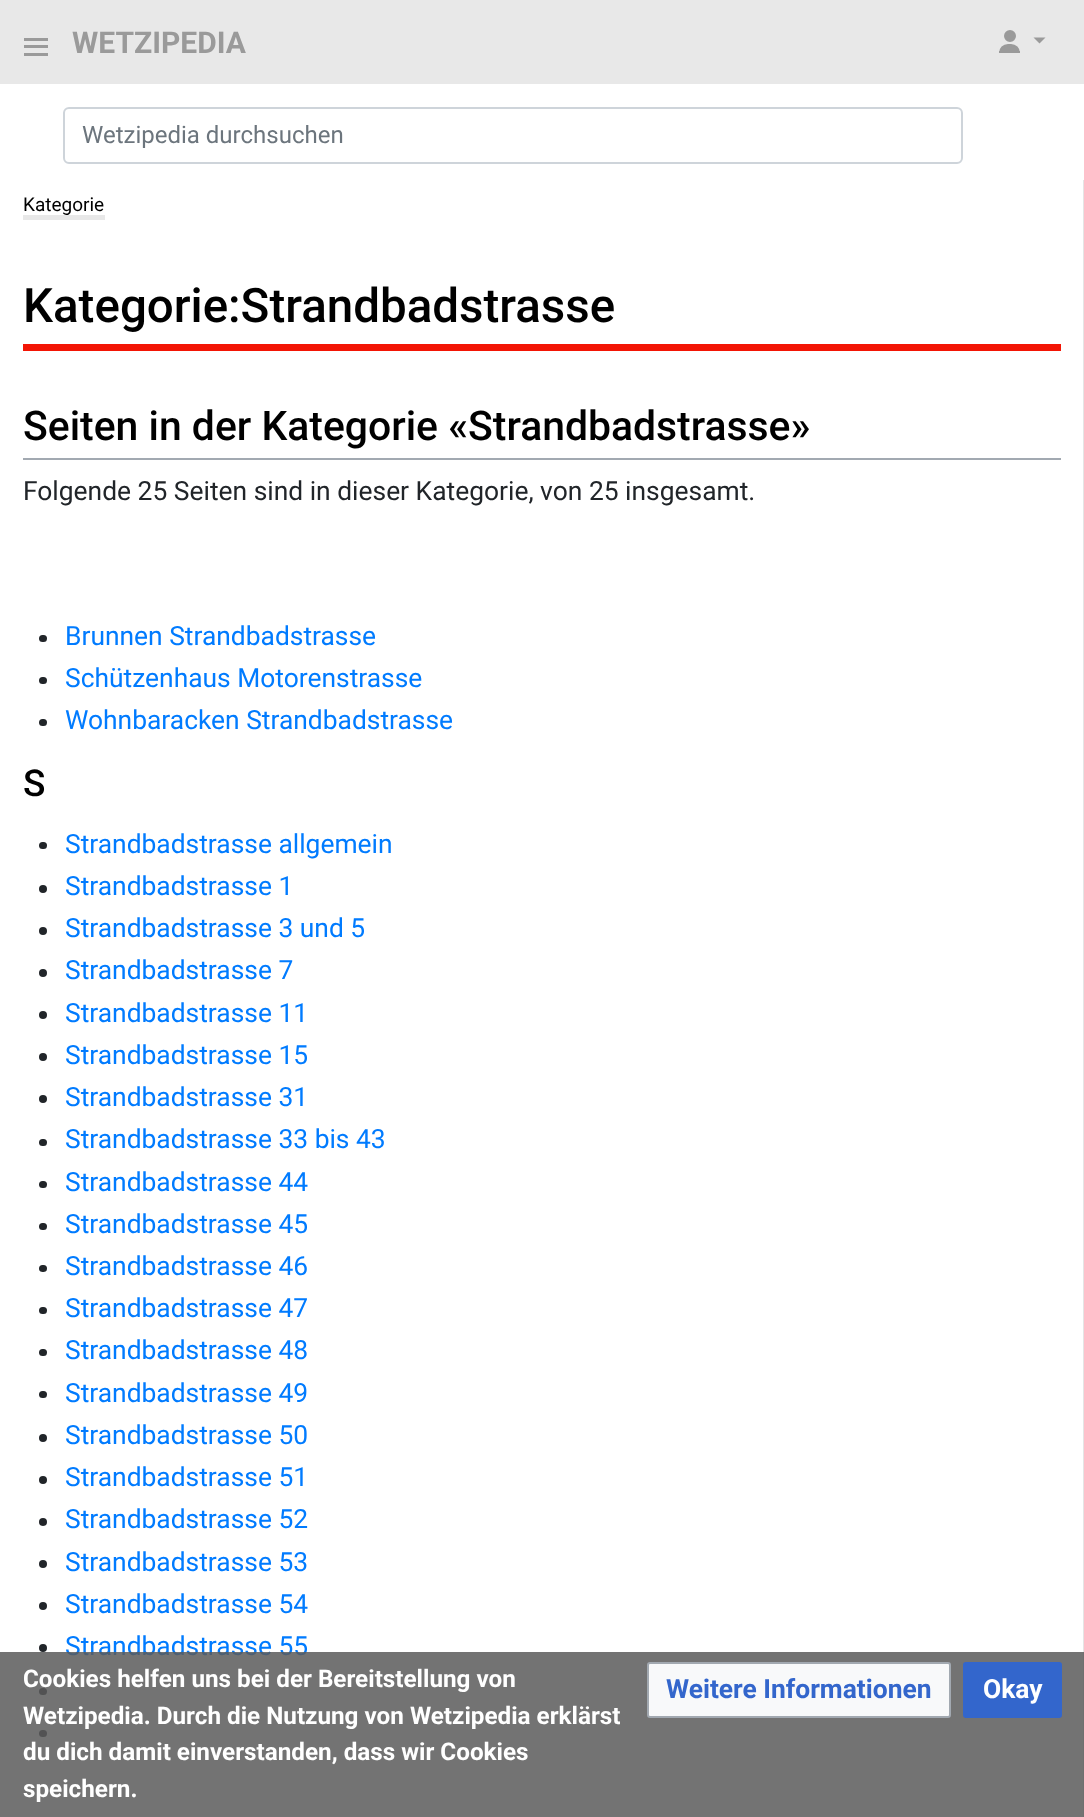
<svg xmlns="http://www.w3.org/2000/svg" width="1084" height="1817">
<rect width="100%" height="100%" fill="#fff"/>
<rect width="1084" height="84" fill="#e8e8e8"/>
<rect x="24" y="53" width="24" height="3" fill="#9a9a9a"/>
<rect x="24" y="38" width="24" height="3" fill="#9a9a9a"/>
<rect x="24" y="45" width="24" height="3" fill="#9a9a9a"/>
<text x="72" y="53" style="font-family:Roboto;font-size:30px;font-weight:bold;fill:#9a9a9a">WETZIPEDIA</text>
<path d="M1008 45h3c4.5 0 8 3.5 8 8v-1h-19v1c0-4.5 3.5-8 8-8z" fill="#9a9a9a" stroke="#9a9a9a" stroke-width="2"/>
<circle cx="1010" cy="36" r="5" fill="#9a9a9a" stroke="#9a9a9a" stroke-width="2"/>
<path d="M1033.5 37.5h12l-6 6z" fill="#9a9a9a"/>
<rect x="64" y="108" width="898" height="55" rx="5" fill="none" stroke="#ced4da" stroke-width="2"/>
<text x="82" y="143" style="font-family:Roboto;font-size:24px;fill:#6c757d">Wetzipedia durchsuchen</text>
<rect x="1083" y="180" width="1" height="1637" fill="#e5e5e5"/>
<text x="23" y="211" style="font-family:Roboto;font-size:19px;fill:#000">Kategorie</text>
<rect x="23" y="215" width="82" height="5" fill="#e8e8e8"/>
<rect x="23" y="344" width="1038" height="7" fill="#f31505"/>
<text x="23" y="322" style="font-family:Roboto;font-size:47.5px;font-weight:500;fill:#000">Kategorie:Strandbadstrasse</text>
<rect x="23" y="458" width="1038" height="2" fill="#a2a9b1"/>
<text x="23" y="440" style="font-family:Roboto;font-size:40.9px;font-weight:500;fill:#000">Seiten in der Kategorie «Strandbadstrasse»</text>
<text x="23" y="500" style="font-family:Roboto;font-size:26.4px;fill:#212529">Folgende 25 Seiten sind in dieser Kategorie, von 25 insgesamt.</text>
<rect x="39" y="635" width="8" height="7" rx="3.5" fill="#212529"/>
<text x="65" y="645" style="font-family:Roboto;font-size:26.4px;fill:#007bff">Brunnen Strandbadstrasse</text>
<rect x="39" y="677" width="8" height="7" rx="3.5" fill="#212529"/>
<text x="65" y="687" style="font-family:Roboto;font-size:26.4px;fill:#007bff">Schützenhaus Motorenstrasse</text>
<rect x="39" y="719" width="8" height="7" rx="3.5" fill="#212529"/>
<text x="65" y="729" style="font-family:Roboto;font-size:26.4px;fill:#007bff">Wohnbaracken Strandbadstrasse</text>
<text x="23" y="796" style="font-family:Roboto;font-size:37px;font-weight:500;fill:#000">S</text>
<rect x="39" y="842" width="8" height="7" rx="3.5" fill="#212529"/>
<text x="65" y="853" style="font-family:Roboto;font-size:26.4px;fill:#007bff">Strandbadstrasse allgemein</text>
<circle cx="43" cy="889" r="4" fill="#212529"/>
<text x="65" y="895" style="font-family:Roboto;font-size:26.4px;fill:#007bff">Strandbadstrasse 1</text>
<circle cx="43" cy="931" r="4" fill="#212529"/>
<text x="65" y="937" style="font-family:Roboto;font-size:26.4px;fill:#007bff">Strandbadstrasse 3 und 5</text>
<circle cx="43" cy="973" r="4" fill="#212529"/>
<text x="65" y="979" style="font-family:Roboto;font-size:26.4px;fill:#007bff">Strandbadstrasse 7</text>
<circle cx="43" cy="1015" r="4" fill="#212529"/>
<text x="65" y="1022" style="font-family:Roboto;font-size:26.4px;fill:#007bff">Strandbadstrasse 11</text>
<circle cx="43" cy="1057" r="4" fill="#212529"/>
<text x="65" y="1064" style="font-family:Roboto;font-size:26.4px;fill:#007bff">Strandbadstrasse 15</text>
<circle cx="43" cy="1099" r="4" fill="#212529"/>
<text x="65" y="1106" style="font-family:Roboto;font-size:26.4px;fill:#007bff">Strandbadstrasse 31</text>
<rect x="39" y="1139" width="8" height="7" rx="3.5" fill="#212529"/>
<text x="65" y="1148" style="font-family:Roboto;font-size:26.4px;fill:#007bff">Strandbadstrasse 33 bis 43</text>
<rect x="39" y="1181" width="8" height="7" rx="3.5" fill="#212529"/>
<text x="65" y="1191" style="font-family:Roboto;font-size:26.4px;fill:#007bff">Strandbadstrasse 44</text>
<rect x="39" y="1223" width="8" height="7" rx="3.5" fill="#212529"/>
<text x="65" y="1233" style="font-family:Roboto;font-size:26.4px;fill:#007bff">Strandbadstrasse 45</text>
<rect x="39" y="1265" width="8" height="7" rx="3.5" fill="#212529"/>
<text x="65" y="1275" style="font-family:Roboto;font-size:26.4px;fill:#007bff">Strandbadstrasse 46</text>
<rect x="39" y="1307" width="8" height="7" rx="3.5" fill="#212529"/>
<text x="65" y="1317" style="font-family:Roboto;font-size:26.4px;fill:#007bff">Strandbadstrasse 47</text>
<rect x="39" y="1349" width="8" height="7" rx="3.5" fill="#212529"/>
<text x="65" y="1359" style="font-family:Roboto;font-size:26.4px;fill:#007bff">Strandbadstrasse 48</text>
<rect x="39" y="1391" width="8" height="7" rx="3.5" fill="#212529"/>
<text x="65" y="1402" style="font-family:Roboto;font-size:26.4px;fill:#007bff">Strandbadstrasse 49</text>
<circle cx="43" cy="1438" r="4" fill="#212529"/>
<text x="65" y="1444" style="font-family:Roboto;font-size:26.4px;fill:#007bff">Strandbadstrasse 50</text>
<circle cx="43" cy="1480" r="4" fill="#212529"/>
<text x="65" y="1486" style="font-family:Roboto;font-size:26.4px;fill:#007bff">Strandbadstrasse 51</text>
<circle cx="43" cy="1522" r="4" fill="#212529"/>
<text x="65" y="1528" style="font-family:Roboto;font-size:26.4px;fill:#007bff">Strandbadstrasse 52</text>
<circle cx="43" cy="1564" r="4" fill="#212529"/>
<text x="65" y="1571" style="font-family:Roboto;font-size:26.4px;fill:#007bff">Strandbadstrasse 53</text>
<circle cx="43" cy="1606" r="4" fill="#212529"/>
<text x="65" y="1613" style="font-family:Roboto;font-size:26.4px;fill:#007bff">Strandbadstrasse 54</text>
<circle cx="43" cy="1648" r="4" fill="#212529"/>
<text x="65" y="1655" style="font-family:Roboto;font-size:26.4px;fill:#007bff">Strandbadstrasse 55</text>
<rect x="39" y="1688" width="8" height="7" rx="3.5" fill="#212529"/>
<rect x="39" y="1730" width="8" height="7" rx="3.5" fill="#212529"/>
<rect y="1652" width="1084" height="165" fill="#5a5a5ad9"/>
<text x="23" y="1687" style="font-family:Roboto;font-size:24.25px;font-weight:bold;fill:#fff">Cookies helfen uns bei der Bereitstellung von</text>
<text x="23" y="1724" style="font-family:Roboto;font-size:24.25px;font-weight:bold;fill:#fff">Wetzipedia. Durch die Nutzung von Wetzipedia erklärst</text>
<text x="23" y="1760" style="font-family:Roboto;font-size:24.25px;font-weight:bold;fill:#fff">du dich damit einverstanden, dass wir Cookies</text>
<text x="23" y="1797" style="font-family:Roboto;font-size:24.25px;font-weight:bold;fill:#fff">speichern.</text>
<rect x="648" y="1663" width="302" height="54" rx="2" fill="#f8f9fa" stroke="#a2a9b1" stroke-width="2"/>
<text x="666" y="1698" style="font-family:Roboto;font-size:26.4px;font-weight:bold;fill:#36c">Weitere Informationen</text>
<rect x="964" y="1663" width="97" height="54" rx="2" fill="#36c" stroke="#36c" stroke-width="2"/>
<text x="983" y="1698" style="font-family:Roboto;font-size:26.4px;font-weight:bold;fill:#fff">Okay</text>
</svg>
